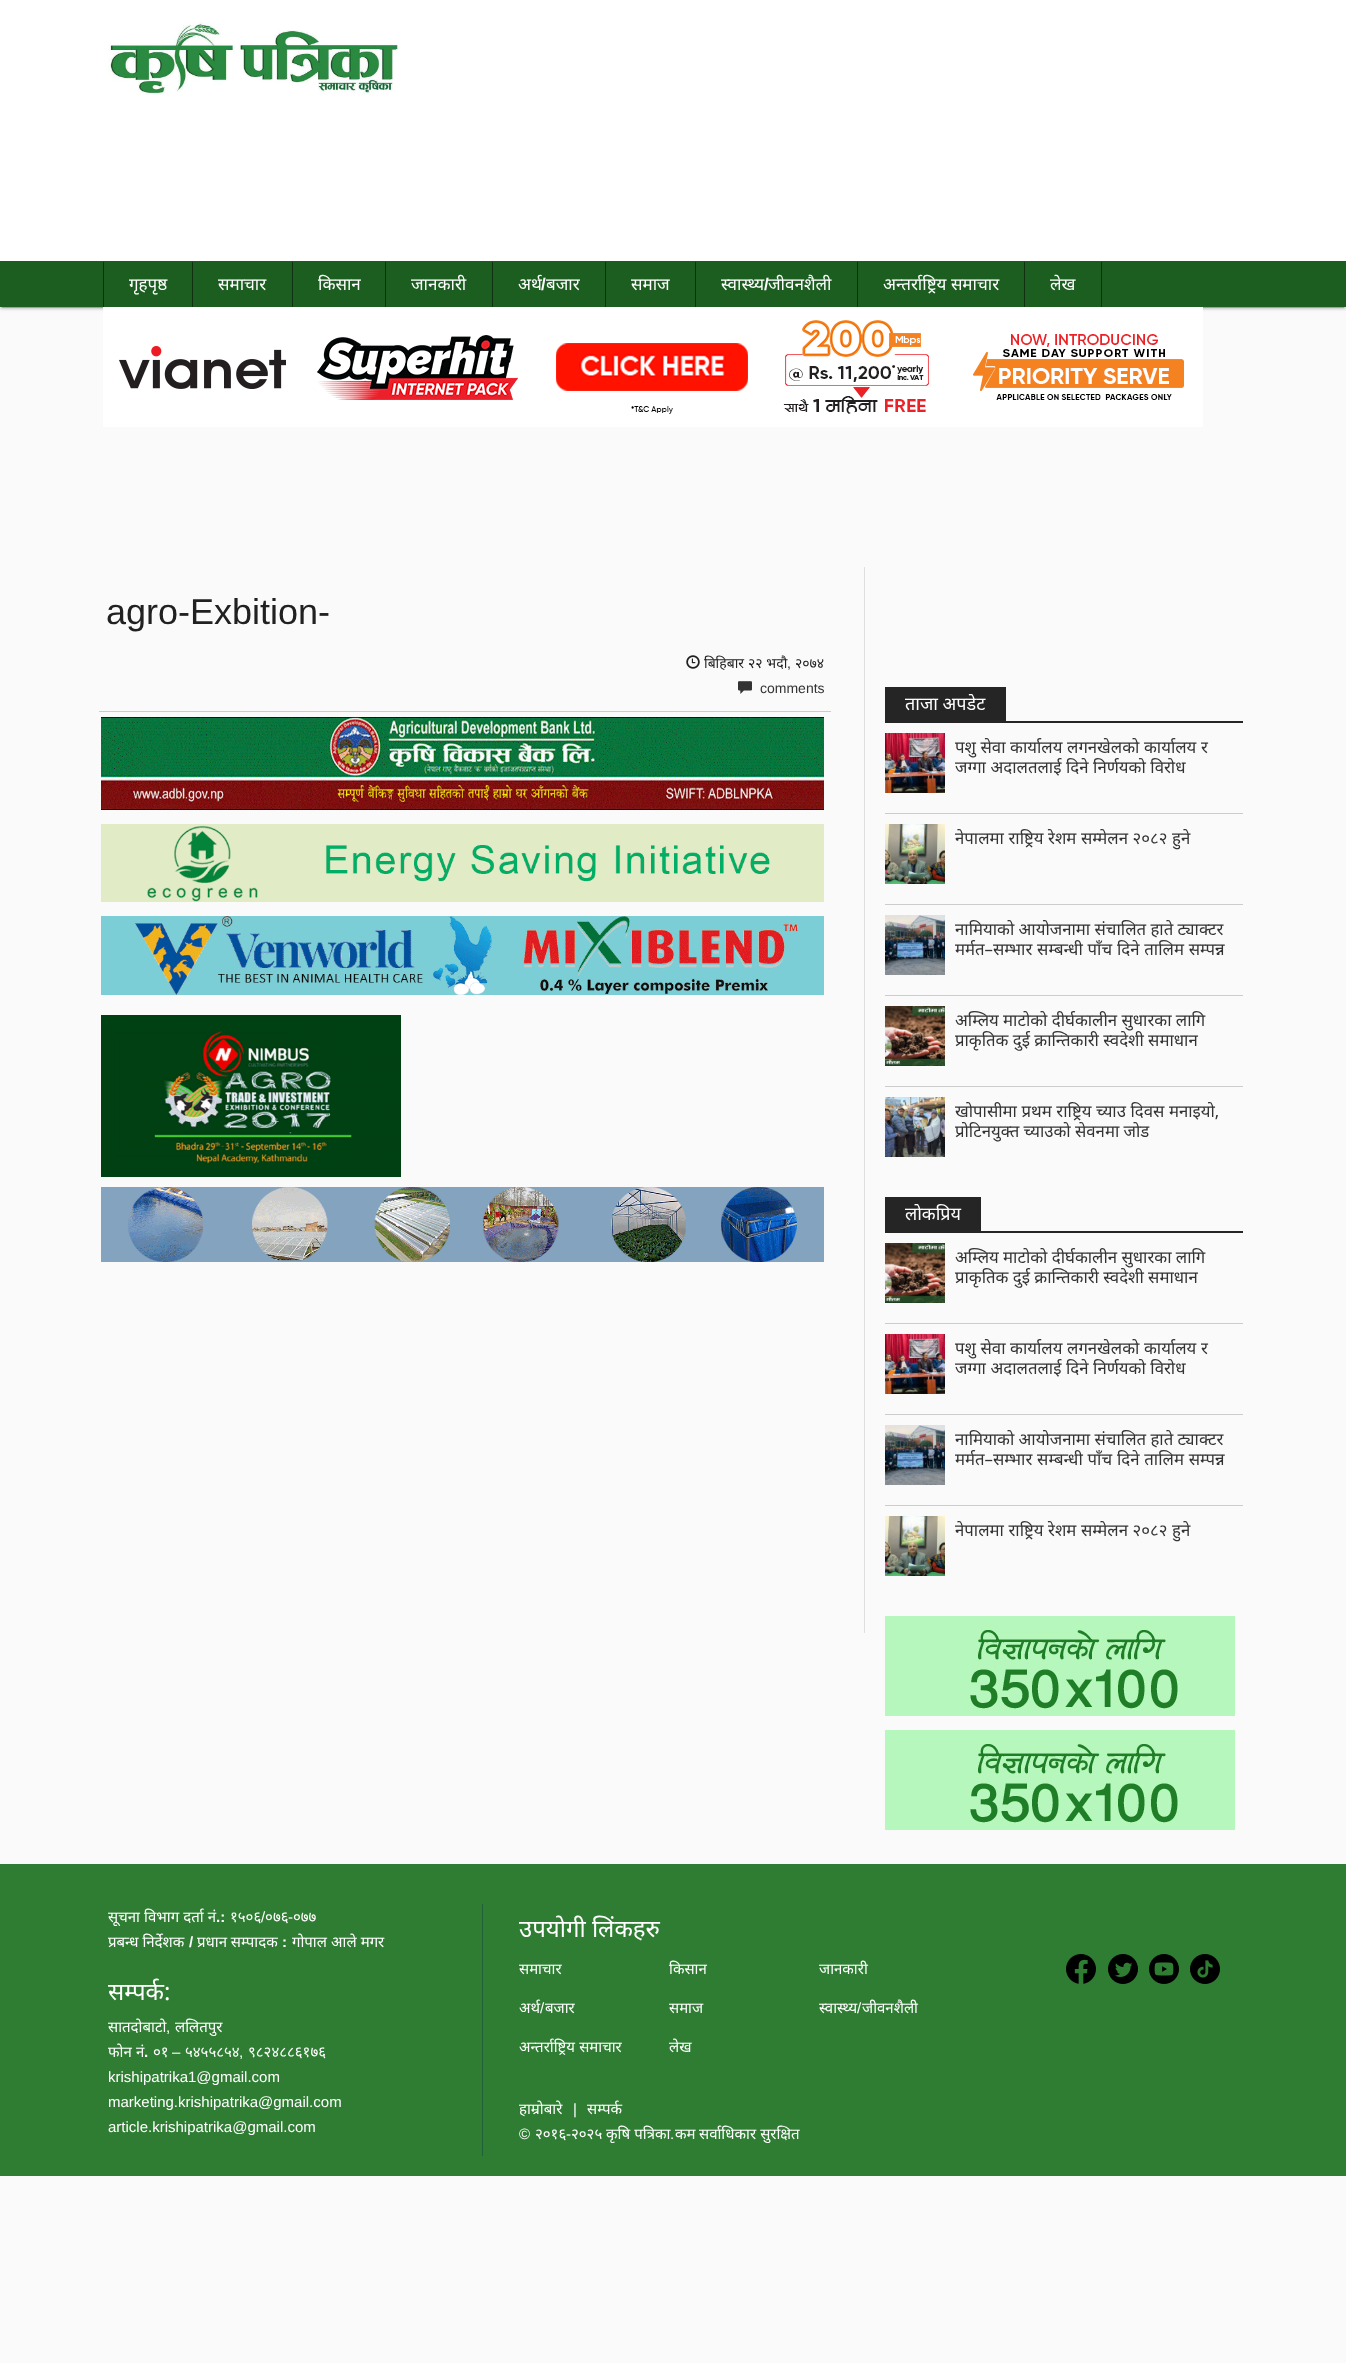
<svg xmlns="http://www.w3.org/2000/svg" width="1346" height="2363">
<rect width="100%" height="100%" fill="#fafafa"/>
<rect y="1" width="1346" height="307" fill="#0000001f" filter="blur(2.5px)"/>
<rect x="2" y="5" width="1342" height="303" fill="#00000033" filter="blur(0.5px)"/>
<rect y="2" width="1346" height="307" fill="#00000024" filter="blur(1px)"/>
<rect width="1346" height="261" fill="#fff"/>
<image x="108" y="22" width="290" height="73" href="media/1.png"/>
<rect y="261" width="1346" height="46" fill="#1b5e20"/>
<rect x="103" y="262" width="1" height="45" fill="#0f3111"/>
<text x="129" y="290" style="font-family:Noto Sans;font-size:17px;fill:#fff">गृहपृष्ठ</text>
<rect x="192" y="262" width="1" height="45" fill="#0f3111"/>
<text x="218" y="290" style="font-family:Noto Sans;font-size:17px;fill:#fff">समाचार</text>
<rect x="292" y="262" width="1" height="45" fill="#0f3111"/>
<text x="318" y="290" style="font-family:Noto Sans;font-size:17px;fill:#fff">किसान</text>
<rect x="385" y="262" width="1" height="45" fill="#0f3111"/>
<text x="411" y="290" style="font-family:Noto Sans;font-size:17px;fill:#fff">जानकारी</text>
<rect x="492" y="262" width="1" height="45" fill="#0f3111"/>
<text x="518" y="290" style="font-family:Noto Sans;font-size:17px;fill:#fff">अर्थ</text>
<text x="541" y="290" style="font-family:Liberation Sans;font-size:17px;font-weight:bold;fill:#fff">/</text>
<text x="546" y="290" style="font-family:Noto Sans;font-size:17px;fill:#fff">बजार</text>
<rect x="605" y="262" width="1" height="45" fill="#0f3111"/>
<text x="631" y="290" style="font-family:Noto Sans;font-size:17px;fill:#fff">समाज</text>
<rect x="695" y="262" width="1" height="45" fill="#0f3111"/>
<text x="721" y="290" style="font-family:Noto Sans;font-size:17px;fill:#fff">स्वास्थ्य</text>
<text x="764" y="290" style="font-family:Liberation Sans;font-size:17px;font-weight:bold;fill:#fff">/</text>
<text x="768" y="290" style="font-family:Noto Sans;font-size:17px;fill:#fff">जीवनशैली</text>
<rect x="857" y="262" width="1" height="45" fill="#0f3111"/>
<text x="883" y="290" style="font-family:Noto Sans;font-size:17px;fill:#fff">अन्तर्राष्ट्रिय समाचार</text>
<rect x="1101" y="262" width="1" height="45" fill="#0f3111"/>
<rect x="1024" y="262" width="1" height="45" fill="#0f3111"/>
<text x="1050" y="290" style="font-family:Noto Sans;font-size:17px;fill:#fff">लेख</text>
<image x="103" y="307" width="1100" height="120" href="media/2.png"/>
<rect x="864" y="567" width="1" height="1066" fill="#dfdfdf"/>
<text x="106" y="624" style="font-family:Liberation Sans;font-size:36px;fill:#212121">agro-Exbition-</text>
<rect x="99" y="711" width="732" height="1" fill="#ccc"/>
<image x="686" y="655" width="14" height="14" href="media/3.png"/>
<text x="704" y="668" word-spacing="0.25" style="font-family:Noto Sans;font-size:14px;fill:#212121">बिहिबार २२ भदौ</text>
<text x="787" y="668" style="font-family:Liberation Sans;font-size:14px;fill:#212121">,</text>
<text x="795" y="668" style="font-family:Noto Sans;font-size:14px;fill:#212121">२०७४</text>
<image x="738" y="681" width="14" height="13" href="media/4.png"/>
<text x="760" y="693" style="font-family:Liberation Sans;font-size:14px;fill:#333">comments</text>
<image x="101" y="717" width="723" height="93" href="media/5.png"/>
<image x="101" y="824" width="723" height="78" href="media/6.png"/>
<image x="101" y="916" width="723" height="79" href="media/7.png"/>
<image x="101" y="1015" width="300" height="162" href="media/8.png"/>
<image x="101" y="1187" width="723" height="75" href="media/9.png"/>
<rect x="885" y="687" width="121" height="34" fill="#252525"/>
<text x="905" y="710" style="font-family:Noto Sans;font-size:18px;fill:#fff">ताजा अपडेट</text>
<rect x="885" y="721" width="358" height="2" fill="#252525"/>
<rect x="885" y="813" width="358" height="1" fill="#ccc"/>
<image x="885" y="733" width="60" height="60" href="media/10.png"/>
<text x="955" y="753" word-spacing="0.25" style="font-family:Noto Sans;font-size:16.75px;fill:#333">पशु सेवा कार्यालय लगनखेलको कार्यालय र</text>
<text x="955" y="773" word-spacing="0.25" style="font-family:Noto Sans;font-size:16.75px;fill:#333">जग्गा अदालतलाई दिने निर्णयको विरोध</text>
<rect x="885" y="904" width="358" height="1" fill="#ccc"/>
<image x="885" y="824" width="60" height="60" href="media/11.png"/>
<text x="955" y="844" word-spacing="0.25" style="font-family:Noto Sans;font-size:16.75px;fill:#333">नेपालमा राष्ट्रिय रेशम सम्मेलन २०८२ हुने</text>
<rect x="885" y="995" width="358" height="1" fill="#ccc"/>
<image x="885" y="915" width="60" height="60" href="media/12.png"/>
<text x="955" y="935" style="font-family:Noto Sans;font-size:16.75px;fill:#333">नामियाको आयोजनामा संचालित हाते ट्याक्टर</text>
<text x="955" y="955" word-spacing="0.5" style="font-family:Noto Sans;font-size:16.75px;fill:#333">मर्मत–सम्भार सम्बन्धी पाँच दिने तालिम सम्पन्न</text>
<rect x="885" y="1086" width="358" height="1" fill="#ccc"/>
<image x="885" y="1006" width="60" height="60" href="media/13.png"/>
<text x="955" y="1026" style="font-family:Noto Sans;font-size:16.75px;fill:#333">अम्लिय माटोको दीर्घकालीन सुधारका लागि</text>
<text x="955" y="1046" style="font-family:Noto Sans;font-size:16.75px;fill:#333">प्राकृतिक दुई क्रान्तिकारी स्वदेशी समाधान</text>
<image x="885" y="1097" width="60" height="60" href="media/14.png"/>
<text x="955" y="1117" word-spacing="0.25" style="font-family:Noto Sans;font-size:16.75px;fill:#333">खोपासीमा प्रथम राष्ट्रिय च्याउ दिवस मनाइयो,</text>
<text x="955" y="1137" style="font-family:Noto Sans;font-size:16.75px;fill:#333">प्रोटिनयुक्त च्याउको सेवनमा जोड</text>
<rect x="885" y="1197" width="96" height="34" fill="#252525"/>
<text x="905" y="1220" style="font-family:Noto Sans;font-size:18px;fill:#fff">लोकप्रिय</text>
<rect x="885" y="1231" width="358" height="2" fill="#252525"/>
<rect x="885" y="1323" width="358" height="1" fill="#ccc"/>
<image x="885" y="1243" width="60" height="60" href="media/13.png"/>
<text x="955" y="1263" style="font-family:Noto Sans;font-size:16.75px;fill:#333">अम्लिय माटोको दीर्घकालीन सुधारका लागि</text>
<text x="955" y="1283" style="font-family:Noto Sans;font-size:16.75px;fill:#333">प्राकृतिक दुई क्रान्तिकारी स्वदेशी समाधान</text>
<rect x="885" y="1414" width="358" height="1" fill="#ccc"/>
<image x="885" y="1334" width="60" height="60" href="media/10.png"/>
<text x="955" y="1354" word-spacing="0.25" style="font-family:Noto Sans;font-size:16.75px;fill:#333">पशु सेवा कार्यालय लगनखेलको कार्यालय र</text>
<text x="955" y="1374" word-spacing="0.25" style="font-family:Noto Sans;font-size:16.75px;fill:#333">जग्गा अदालतलाई दिने निर्णयको विरोध</text>
<rect x="885" y="1505" width="358" height="1" fill="#ccc"/>
<image x="885" y="1425" width="60" height="60" href="media/12.png"/>
<text x="955" y="1445" style="font-family:Noto Sans;font-size:16.75px;fill:#333">नामियाको आयोजनामा संचालित हाते ट्याक्टर</text>
<text x="955" y="1465" word-spacing="0.5" style="font-family:Noto Sans;font-size:16.75px;fill:#333">मर्मत–सम्भार सम्बन्धी पाँच दिने तालिम सम्पन्न</text>
<image x="885" y="1516" width="60" height="60" href="media/11.png"/>
<text x="955" y="1536" word-spacing="0.25" style="font-family:Noto Sans;font-size:16.75px;fill:#333">नेपालमा राष्ट्रिय रेशम सम्मेलन २०८२ हुने</text>
<image x="885" y="1616" width="350" height="100" href="media/15.png"/>
<image x="885" y="1730" width="350" height="100" href="media/15.png"/>
<rect y="1864" width="1346" height="312" fill="#2e7d32"/>
<text x="108" y="1922" word-spacing="0.25" style="font-family:Noto Sans;font-size:15px;fill:#fff">सूचना विभाग दर्ता नं</text>
<text x="230" y="1922" style="font-family:Noto Sans;font-size:15px;fill:#fff">१५०६ ०७६</text>
<text x="261" y="1922" style="font-family:Liberation Sans;font-size:15px;fill:#fff">/</text>
<text x="216" y="1922" style="font-family:Liberation Sans;font-size:15px;font-weight:bold;fill:#fff">.:</text>
<text x="288" y="1922" style="font-family:Liberation Sans;font-size:15px;fill:#fff">-</text>
<text x="293" y="1922" style="font-family:Noto Sans;font-size:15px;fill:#fff">०७७</text>
<text x="108" y="1947" style="font-family:Noto Sans;font-size:15px;fill:#fff">प्रबन्ध निर्देशक</text>
<text x="189" y="1947" style="font-family:Liberation Sans;font-size:15px;font-weight:bold;fill:#fff">/</text>
<text x="197" y="1947" style="font-family:Noto Sans;font-size:15px;fill:#fff">प्रधान सम्पादक</text>
<text x="282" y="1947" style="font-family:Liberation Sans;font-size:15px;font-weight:bold;fill:#fff">:</text>
<text x="292" y="1947" word-spacing="0.25" style="font-family:Noto Sans;font-size:15px;fill:#fff">गोपाल आले मगर</text>
<text x="108" y="2000" style="font-family:Noto Sans;font-size:24px;fill:#fff">सम्पर्क:</text>
<text x="108" y="2032" style="font-family:Noto Sans;font-size:15px;fill:#fff">सातदोबाटो</text>
<text x="166" y="2032" style="font-family:Liberation Sans;font-size:15px;fill:#fff">,</text>
<text x="175" y="2032" style="font-family:Noto Sans;font-size:15px;fill:#fff">ललितपुर</text>
<text x="108" y="2057" word-spacing="0.25" style="font-family:Noto Sans;font-size:15px;fill:#fff">फोन नं</text>
<text x="153" y="2057" style="font-family:Noto Sans;font-size:15px;fill:#fff">०१</text>
<text x="172" y="2057" style="font-family:Liberation Sans;font-size:15px;fill:#fff">–</text>
<text x="185" y="2057" style="font-family:Noto Sans;font-size:15px;fill:#fff">५४५५८५४</text>
<text x="248" y="2057" style="font-family:Noto Sans;font-size:15px;fill:#fff">९८२४८८६१७६</text>
<text x="144" y="2057" style="font-family:Liberation Sans;font-size:15px;font-weight:bold;fill:#fff">.</text>
<text x="239" y="2057" style="font-family:Liberation Sans;font-size:15px;fill:#fff">,</text>
<text x="108" y="2082" style="font-family:Liberation Sans;font-size:15px;fill:#fff">krishipatrika1@gmail.com</text>
<text x="108" y="2107" style="font-family:Liberation Sans;font-size:15px;fill:#fff">marketing.krishipatrika@gmail.com</text>
<text x="108" y="2132" style="font-family:Liberation Sans;font-size:15px;fill:#fff">article.krishipatrika@gmail.com</text>
<rect x="482" y="1904" width="1" height="252" fill="#206038"/>
<text x="519" y="1937" style="font-family:Noto Sans;font-size:24px;fill:#fff">उपयोगी लिंकहरु</text>
<text x="519" y="1974" style="font-family:Noto Sans;font-size:15px;fill:#fff">समाचार</text>
<text x="669" y="1974" style="font-family:Noto Sans;font-size:15px;fill:#fff">किसान</text>
<text x="819" y="1974" style="font-family:Noto Sans;font-size:15px;fill:#fff">जानकारी</text>
<text x="519" y="2013" style="font-family:Noto Sans;font-size:15px;fill:#fff">अर्थ</text>
<text x="540" y="2013" style="font-family:Liberation Sans;font-size:15px;fill:#fff">/</text>
<text x="545" y="2013" style="font-family:Noto Sans;font-size:15px;fill:#fff">बजार</text>
<text x="669" y="2013" style="font-family:Noto Sans;font-size:15px;fill:#fff">समाज</text>
<text x="819" y="2013" style="font-family:Noto Sans;font-size:15px;fill:#fff">स्वास्थ्य</text>
<text x="857" y="2013" style="font-family:Liberation Sans;font-size:15px;fill:#fff">/</text>
<text x="862" y="2013" style="font-family:Noto Sans;font-size:15px;fill:#fff">जीवनशैली</text>
<text x="519" y="2052" word-spacing="0.25" style="font-family:Noto Sans;font-size:15px;fill:#fff">अन्तर्राष्ट्रिय समाचार</text>
<text x="669" y="2052" style="font-family:Noto Sans;font-size:15px;fill:#fff">लेख</text>
<text x="519" y="2114" style="font-family:Noto Sans;font-size:15px;fill:#fff">हाम्रोबारे</text>
<text x="573" y="2114" style="font-family:Liberation Sans;font-size:15px;fill:#fff">|</text>
<text x="587" y="2114" style="font-family:Noto Sans;font-size:15px;fill:#fff">सम्पर्क</text>
<text x="519" y="2139" style="font-family:Liberation Sans;font-size:15px;fill:#fff">©</text>
<text x="535" y="2139" style="font-family:Noto Sans;font-size:15px;fill:#fff">२०१६</text>
<text x="566" y="2139" style="font-family:Liberation Sans;font-size:15px;fill:#fff">-</text>
<text x="571" y="2139" style="font-family:Noto Sans;font-size:15px;fill:#fff">२०२५</text>
<text x="606" y="2139" word-spacing="0.25" style="font-family:Noto Sans;font-size:15px;fill:#fff">कृषि पत्रिका</text>
<text x="675" y="2139" style="font-family:Noto Sans;font-size:15px;fill:#fff">कम</text>
<text x="699" y="2139" word-spacing="0.25" style="font-family:Noto Sans;font-size:15px;fill:#fff">सर्वाधिकार सुरक्षित</text>
<text x="670" y="2139" style="font-family:Liberation Sans;font-size:15px;fill:#fff">.</text>
<image x="1066" y="1954" width="30" height="30" href="media/16.png"/>
<image x="1108" y="1954" width="30" height="30" href="media/17.png"/>
<image x="1149" y="1954" width="30" height="30" href="media/18.png"/>
<image x="1190" y="1954" width="30" height="30" href="media/19.png"/>
</svg>
